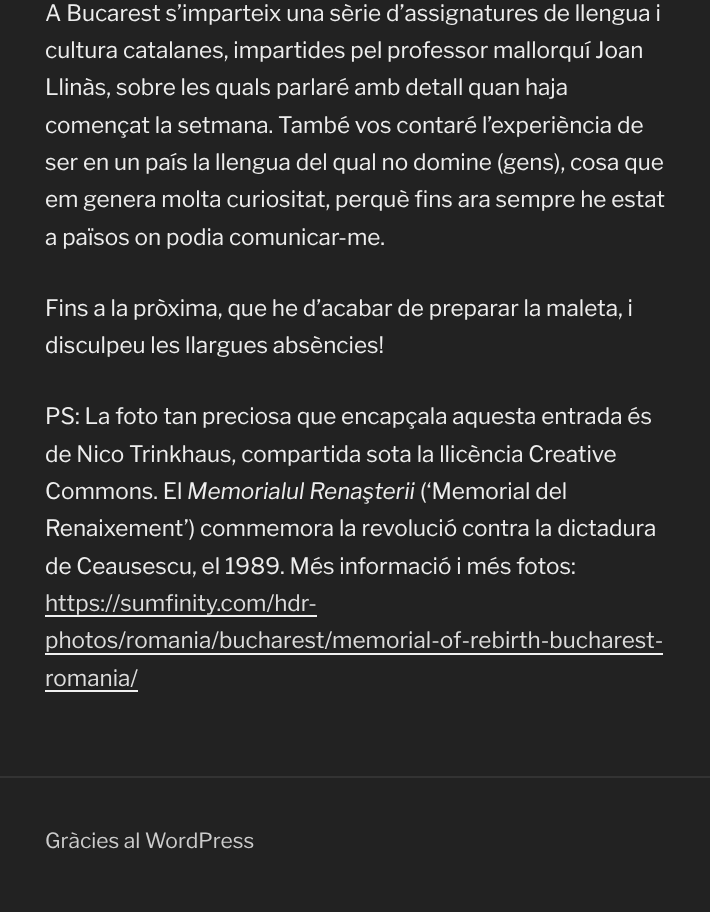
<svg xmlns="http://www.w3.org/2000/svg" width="710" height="912">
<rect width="100%" height="100%" fill="#222"/>
<text x="45" y="21" style="font-family:Libre Franklin;font-size:22.5px;font-weight:100;fill:#eee">A Bucarest s’imparteix una sèrie d’assignatures de llengua i</text>
<text x="45" y="58" style="font-family:Libre Franklin;font-size:22.5px;font-weight:100;fill:#eee">cultura catalanes, impartides pel professor mallorquí Joan</text>
<text x="45" y="95" style="font-family:Libre Franklin;font-size:22.5px;font-weight:100;fill:#eee">Llinàs, sobre les quals parlaré amb detall quan haja</text>
<text x="45" y="133" style="font-family:Libre Franklin;font-size:22.5px;font-weight:100;fill:#eee">començat la setmana. També vos contaré l’experiència de</text>
<text x="45" y="170" style="font-family:Libre Franklin;font-size:22.5px;font-weight:100;fill:#eee">ser en un país la llengua del qual no domine (gens), cosa que</text>
<text x="45" y="207" style="font-family:Libre Franklin;font-size:22.5px;font-weight:100;fill:#eee">em genera molta curiositat, perquè fins ara sempre he estat</text>
<text x="45" y="245" style="font-family:Libre Franklin;font-size:22.5px;font-weight:100;fill:#eee">a països on podia comunicar-me.</text>
<text x="45" y="316" style="font-family:Libre Franklin;font-size:22.5px;font-weight:100;fill:#eee">Fins a la pròxima, que he d’acabar de preparar la maleta, i</text>
<text x="45" y="353" style="font-family:Libre Franklin;font-size:22.5px;font-weight:100;fill:#eee">disculpeu les llargues absències!</text>
<text x="45" y="424" style="font-family:Libre Franklin;font-size:22.5px;font-weight:100;fill:#eee">PS: La foto tan preciosa que encapçala aquesta entrada és</text>
<text x="45" y="462" style="font-family:Libre Franklin;font-size:22.5px;font-weight:100;fill:#eee">de Nico Trinkhaus, compartida sota la llicència Creative</text>
<text x="45" y="499" style="font-family:Libre Franklin;font-size:22.5px;font-weight:100;fill:#eee">Commons. El</text>
<text x="187" y="499" style="font-family:Libre Franklin;font-size:22.5px;font-weight:100;font-style:italic;fill:#eee">Memorialul Renaşterii</text>
<text x="420" y="499" style="font-family:Libre Franklin;font-size:22.5px;font-weight:100;fill:#eee">(‘Memorial del</text>
<text x="45" y="536" style="font-family:Libre Franklin;font-size:22.5px;font-weight:100;fill:#eee">Renaixement’) commemora la revolució contra la dictadura</text>
<text x="45" y="574" style="font-family:Libre Franklin;font-size:22.5px;font-weight:100;fill:#eee">de Ceausescu, el 1989. Més informació i més fotos:</text>
<text x="45" y="611" style="font-family:Libre Franklin;font-size:22.5px;font-weight:100;fill:#ddd">https://sumfinity.com/hdr-</text>
<rect x="45" y="615" width="272" height="2" fill="#f0f0f0"/>
<text x="45" y="648" style="font-family:Libre Franklin;font-size:22.5px;font-weight:100;fill:#ddd">photos/romania/bucharest/memorial-of-rebirth-bucharest-</text>
<rect x="45" y="653" width="618" height="2" fill="#f0f0f0"/>
<text x="45" y="686" style="font-family:Libre Franklin;font-size:22.5px;font-weight:100;fill:#ddd">romania/</text>
<rect x="45" y="690" width="93" height="2" fill="#f0f0f0"/>
<rect y="776" width="710" height="2" fill="#333"/>
<text x="45" y="848" style="font-family:Libre Franklin;font-size:21px;font-weight:100;fill:#ccc">Gràcies al WordPress</text>
</svg>
